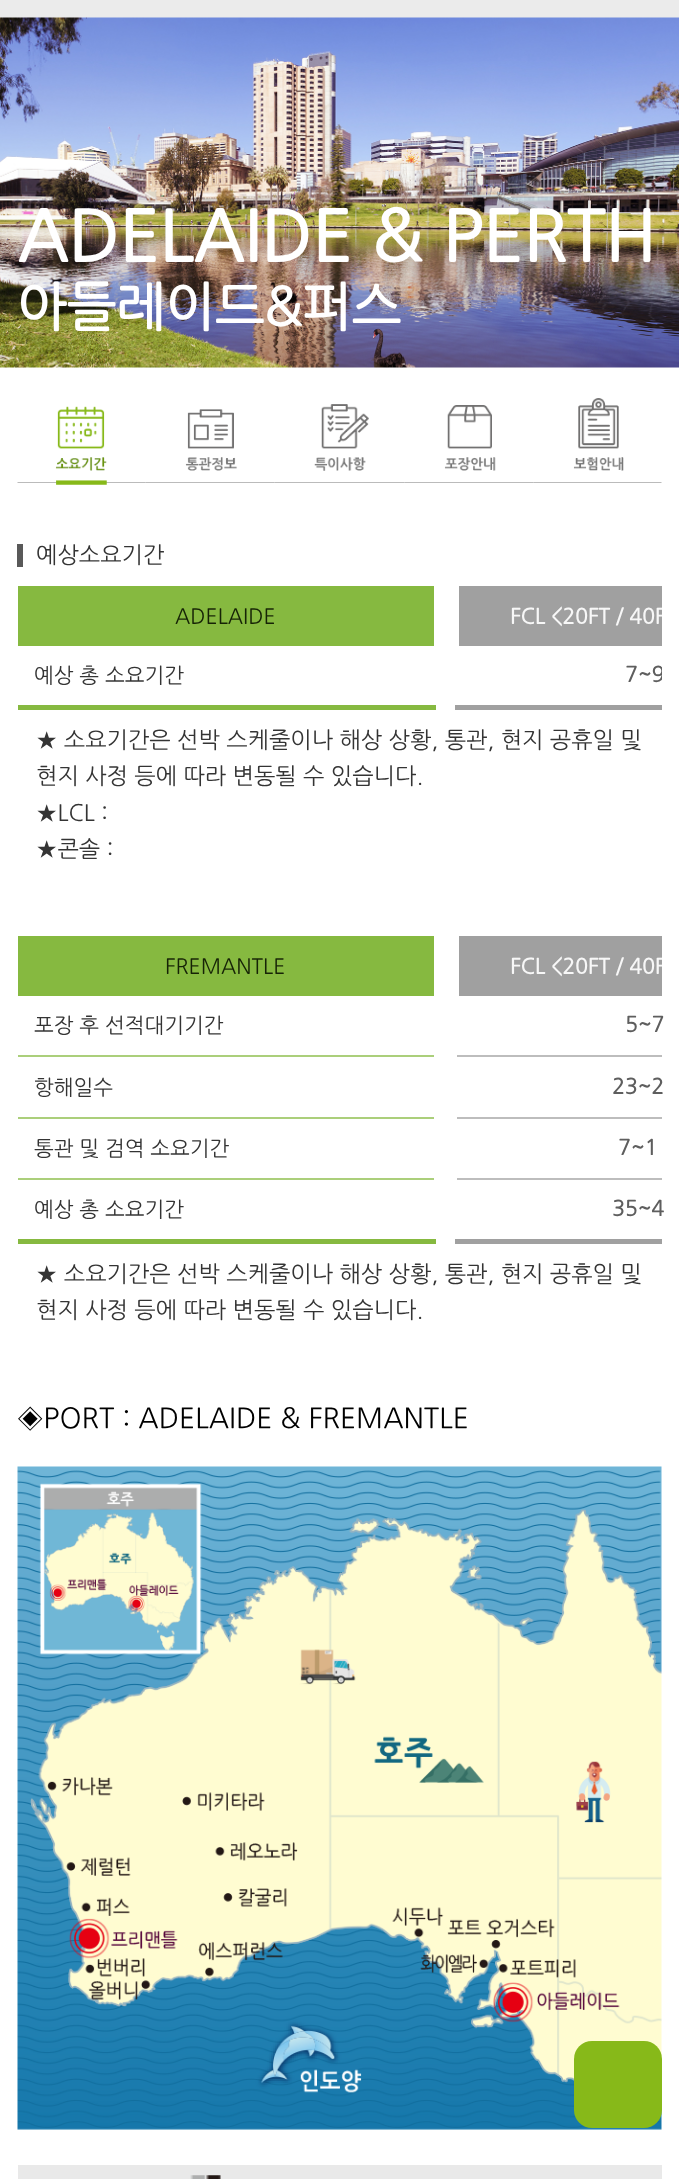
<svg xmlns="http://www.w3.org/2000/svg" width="679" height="2179">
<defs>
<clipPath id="clip1"><rect x="18" y="586" width="644" height="125"/></clipPath>
<clipPath id="clip2"><rect x="18" y="903" width="644" height="341"/></clipPath>
</defs>
<rect width="100%" height="100%" fill="#fff"/>
<rect width="679" height="18" fill="#ebebeb"/>
<image x="0" y="17" width="679" height="351" href="media/1.png"/>
<text x="17" y="259" style="font-family:NanumGothic;font-size:70px;font-weight:bold;fill:#fff">ADELAIDE &amp; PERTH</text>
<text x="17" y="324" style="font-family:NanumGothic;font-size:52.5px;font-weight:bold;fill:#fff">아들레이드&amp;퍼스</text>
<image x="17" y="406" width="129" height="79" href="media/2.png"/>
<image x="145" y="409" width="130" height="74" href="media/3.png"/>
<image x="274" y="404" width="131" height="79" href="media/4.png"/>
<image x="404" y="405" width="130" height="78" href="media/5.png"/>
<image x="533" y="398" width="129" height="85" href="media/6.png"/>
<rect x="17" y="544" width="6" height="23" fill="#595959"/>
<text x="36" y="562" style="font-family:NanumGothic;font-size:22.75px;fill:#343434">예상소요기간</text>
<rect x="18" y="586" width="416" height="60" fill="#86b940"/>
<text x="175" y="623" style="font-family:NanumGothic;font-size:21px;fill:#162306">ADELAIDE</text>
<rect x="459" y="586" width="203" height="60" fill="#a0a0a0"/>
<g clip-path="url(#clip1)">
<text x="510" y="623" style="font-family:NanumGothic;font-size:21px;font-weight:bold;fill:#f7f7f7">FCL &lt;20FT / 40F</text>
</g>
<rect x="18" y="705" width="418" height="5" fill="#86b940"/>
<text x="34" y="682" style="font-family:NanumGothic;font-size:21px;fill:#343434">예상 총 소요기간</text>
<rect x="455" y="705" width="207" height="5" fill="#a0a0a0"/>
<g clip-path="url(#clip1)">
<text x="625" y="681" style="font-family:NanumGothic;font-size:21px;font-weight:bold;fill:#5e5e5e">7~9</text>
</g>
<text x="36" y="747" style="font-family:NanumGothic;font-size:22.75px;fill:#343434">★ 소요기간은 선박 스케줄이나 해상 상황, 통관, 현지 공휴일 및</text>
<text x="36" y="783" style="font-family:NanumGothic;font-size:22.75px;fill:#343434">현지 사정 등에 따라 변동될 수 있습니다.</text>
<text x="36" y="820" style="font-family:NanumGothic;font-size:22.75px;fill:#343434">★LCL :</text>
<text x="36" y="856" style="font-family:NanumGothic;font-size:22.75px;fill:#343434">★콘솔 :</text>
<rect x="18" y="936" width="416" height="60" fill="#86b940"/>
<text x="165" y="973" style="font-family:NanumGothic;font-size:21px;fill:#162306">FREMANTLE</text>
<rect x="459" y="936" width="203" height="60" fill="#a0a0a0"/>
<g clip-path="url(#clip2)">
<text x="510" y="973" style="font-family:NanumGothic;font-size:21px;font-weight:bold;fill:#f7f7f7">FCL &lt;20FT / 40F</text>
</g>
<rect x="18" y="1055" width="416" height="2" fill="#abcf7b"/>
<text x="34" y="1032" style="font-family:NanumGothic;font-size:21px;fill:#343434">포장 후 선적대기기간</text>
<rect x="457" y="1055" width="205" height="2" fill="#bdbdbd"/>
<text x="625" y="1031" style="font-family:NanumGothic;font-size:21px;font-weight:bold;fill:#5e5e5e">5~7</text>
<rect x="18" y="1117" width="416" height="2" fill="#abcf7b"/>
<text x="34" y="1094" style="font-family:NanumGothic;font-size:21px;fill:#343434">항해일수</text>
<rect x="457" y="1117" width="205" height="2" fill="#bdbdbd"/>
<text x="612" y="1093" style="font-family:NanumGothic;font-size:21px;font-weight:bold;fill:#5e5e5e">23~2</text>
<rect x="18" y="1178" width="416" height="2" fill="#abcf7b"/>
<text x="34" y="1155" style="font-family:NanumGothic;font-size:21px;fill:#343434">통관 및 검역 소요기간</text>
<rect x="457" y="1178" width="205" height="2" fill="#bdbdbd"/>
<text x="618" y="1154" style="font-family:NanumGothic;font-size:21px;font-weight:bold;fill:#5e5e5e">7~1</text>
<rect x="18" y="1239" width="418" height="5" fill="#86b940"/>
<text x="34" y="1216" style="font-family:NanumGothic;font-size:21px;fill:#343434">예상 총 소요기간</text>
<rect x="455" y="1239" width="207" height="5" fill="#a0a0a0"/>
<text x="612" y="1215" style="font-family:NanumGothic;font-size:21px;font-weight:bold;fill:#5e5e5e">35~4</text>
<text x="36" y="1281" style="font-family:NanumGothic;font-size:22.75px;fill:#343434">★ 소요기간은 선박 스케줄이나 해상 상황, 통관, 현지 공휴일 및</text>
<text x="36" y="1317" style="font-family:NanumGothic;font-size:22.75px;fill:#343434">현지 사정 등에 따라 변동될 수 있습니다.</text>
<text x="17" y="1427" style="font-family:NanumGothic;font-size:28px;fill:#000">◈PORT : ADELAIDE &amp; FREMANTLE</text>
<image x="17" y="1466" width="645" height="664" href="media/7.png"/>
<rect x="18" y="2165" width="644" height="14" fill="#e9e9e9"/>
<image x="190" y="2175" width="31" height="4" href="media/8.png"/>
<rect x="574" y="2041" width="88" height="87" rx="18" fill="#87b919"/>
</svg>
